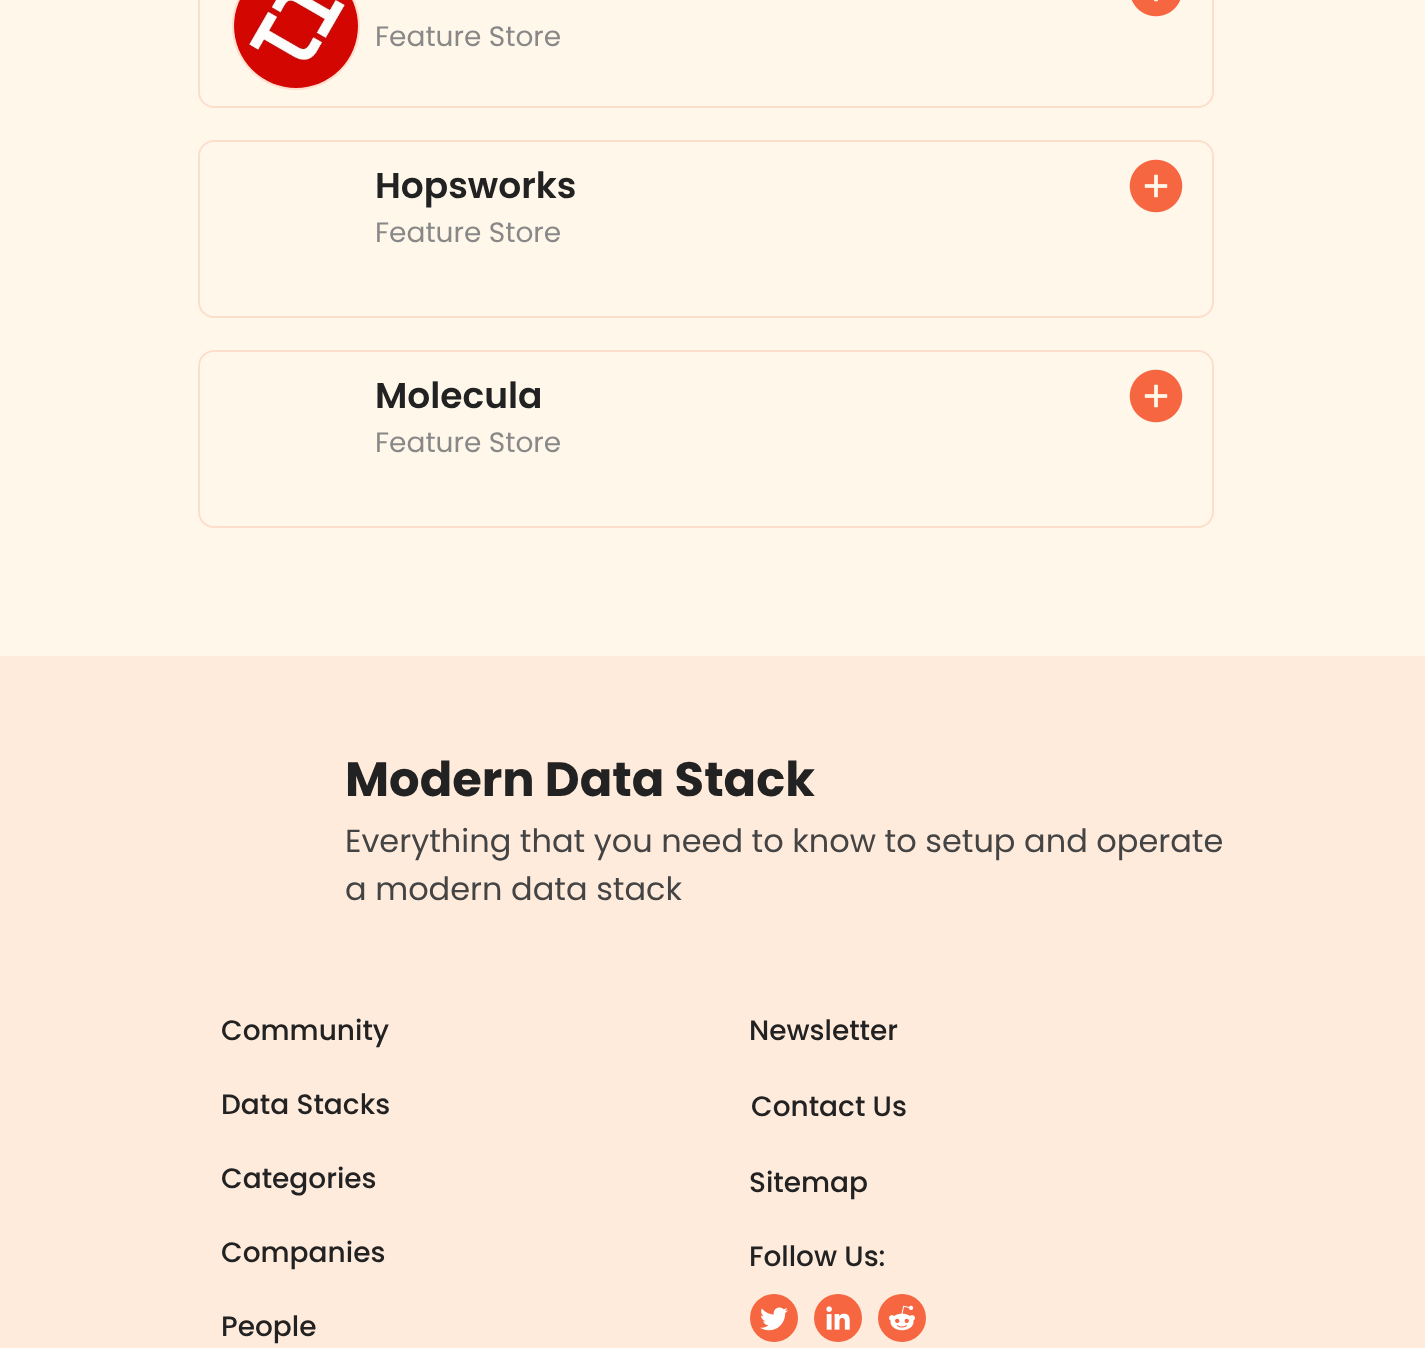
<svg xmlns="http://www.w3.org/2000/svg" width="1425" height="1348">
<rect width="100%" height="100%" fill="#fff7ea"/>
<rect x="199" y="-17" width="1014" height="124" rx="15" fill="none" stroke="#fddecc" stroke-width="2"/>
<image x="1131" y="0" width="50" height="17" href="media/1.png"/>
<circle cx="296" cy="26" r="63" fill="#fff" stroke="#fddecc" stroke-width="2"/>
<image x="234" y="0" width="124" height="88" href="media/2.png"/>
<text x="375" y="46" style="font-family:Poppins;font-size:28px;fill:#888">Feature Store</text>
<rect x="199" y="141" width="1014" height="176" rx="15" fill="none" stroke="#fddecc" stroke-width="2"/>
<text x="375" y="198" style="font-family:Poppins;font-size:36px;font-weight:600;fill:#222">Hopsworks</text>
<text x="375" y="242" style="font-family:Poppins;font-size:28px;fill:#888">Feature Store</text>
<image x="1129" y="159" width="54" height="54" href="media/3.png"/>
<rect x="199" y="351" width="1014" height="176" rx="15" fill="none" stroke="#fddecc" stroke-width="2"/>
<text x="375" y="408" style="font-family:Poppins;font-size:36px;font-weight:600;fill:#222">Molecula</text>
<text x="375" y="452" style="font-family:Poppins;font-size:28px;fill:#888">Feature Store</text>
<image x="1129" y="369" width="54" height="54" href="media/3.png"/>
<rect y="656" width="1425" height="692" fill="#feebdc"/>
<text x="345" y="796" style="font-family:Poppins;font-size:48px;font-weight:bold;fill:#222">Modern Data Stack</text>
<text x="345" y="852" style="font-family:Poppins;font-size:32px;fill:#444">Everything that you need to know to setup and operate</text>
<text x="345" y="900" style="font-family:Poppins;font-size:32px;fill:#444">a modern data stack</text>
<text x="221" y="1040" style="font-family:Poppins;font-size:28px;font-weight:500;fill:#222">Community</text>
<text x="221" y="1114" style="font-family:Poppins;font-size:28px;font-weight:500;fill:#222">Data Stacks</text>
<text x="221" y="1188" style="font-family:Poppins;font-size:28px;font-weight:500;fill:#222">Categories</text>
<text x="221" y="1262" style="font-family:Poppins;font-size:28px;font-weight:500;fill:#222">Companies</text>
<text x="221" y="1336" style="font-family:Poppins;font-size:28px;font-weight:500;fill:#222">People</text>
<text x="749" y="1040" style="font-family:Poppins;font-size:28px;font-weight:500;fill:#222">Newsletter</text>
<text x="751" y="1116" style="font-family:Poppins;font-size:28px;font-weight:500;fill:#222">Contact Us</text>
<text x="749" y="1192" style="font-family:Poppins;font-size:28px;font-weight:500;fill:#222">Sitemap</text>
<text x="749" y="1266" style="font-family:Poppins;font-size:28px;font-weight:500;fill:#222">Follow Us:</text>
<circle cx="774" cy="1318" r="24" fill="#f66640"/>
<image x="760" y="1307" width="28" height="24" href="media/4.png"/>
<circle cx="838" cy="1318" r="24" fill="#f66640"/>
<image x="826" y="1306" width="24" height="24" href="media/5.png"/>
<circle cx="902" cy="1318" r="24" fill="#f66640"/>
<image x="889" y="1305" width="26" height="26" href="media/6.png"/>
</svg>
